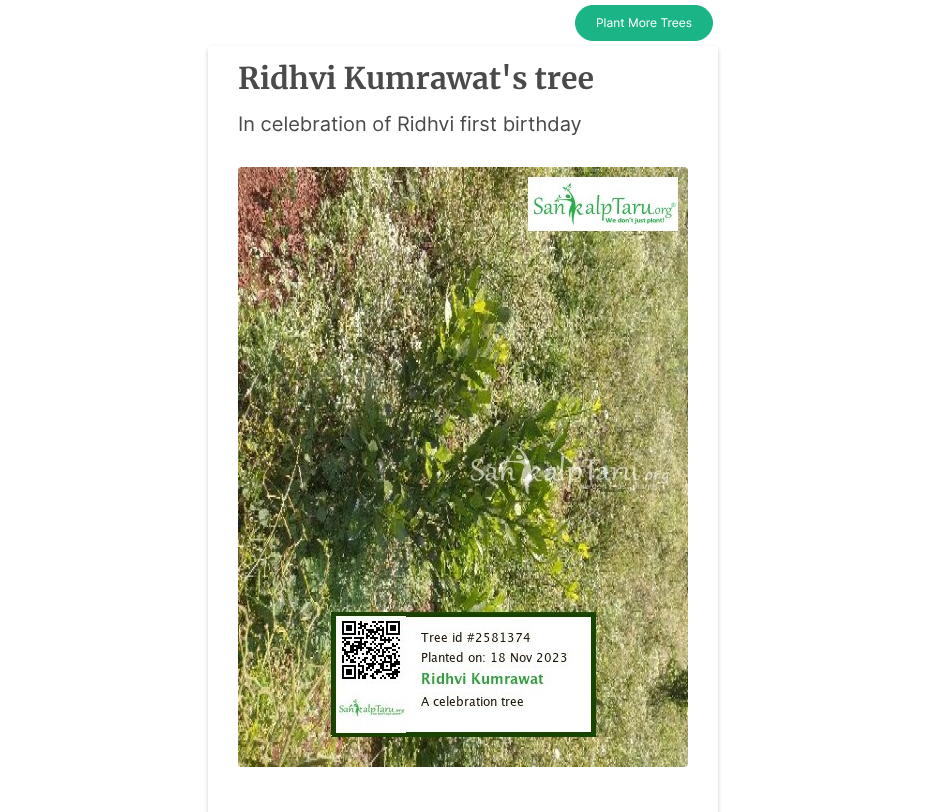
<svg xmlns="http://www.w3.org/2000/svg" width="926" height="812">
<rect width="100%" height="100%" fill="#fff"/>
<rect x="575.5" y="5.5" width="137" height="35" rx="17.5" fill="#1bb486" stroke="#1bb486"/>
<text x="596" y="27" style="font-family:Inter;font-size:12px;fill:#fff">Plant More Trees</text>
<rect x="208" y="48" width="510" height="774" rx="4" fill="#00000033" filter="blur(2px)"/>
<rect x="208" y="46" width="510" height="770" rx="4" fill="#fff"/>
<text x="238" y="89" style="font-family:Merriweather;font-size:30px;font-weight:bold;fill:#4a4a4a">Ridhvi Kumrawat's tree</text>
<text x="238" y="131" style="font-family:Inter;font-size:20px;fill:#4a4a4a">In celebration of Ridhvi first birthday</text>
<image x="238" y="167" width="450" height="600" href="media/1.png"/>
</svg>
